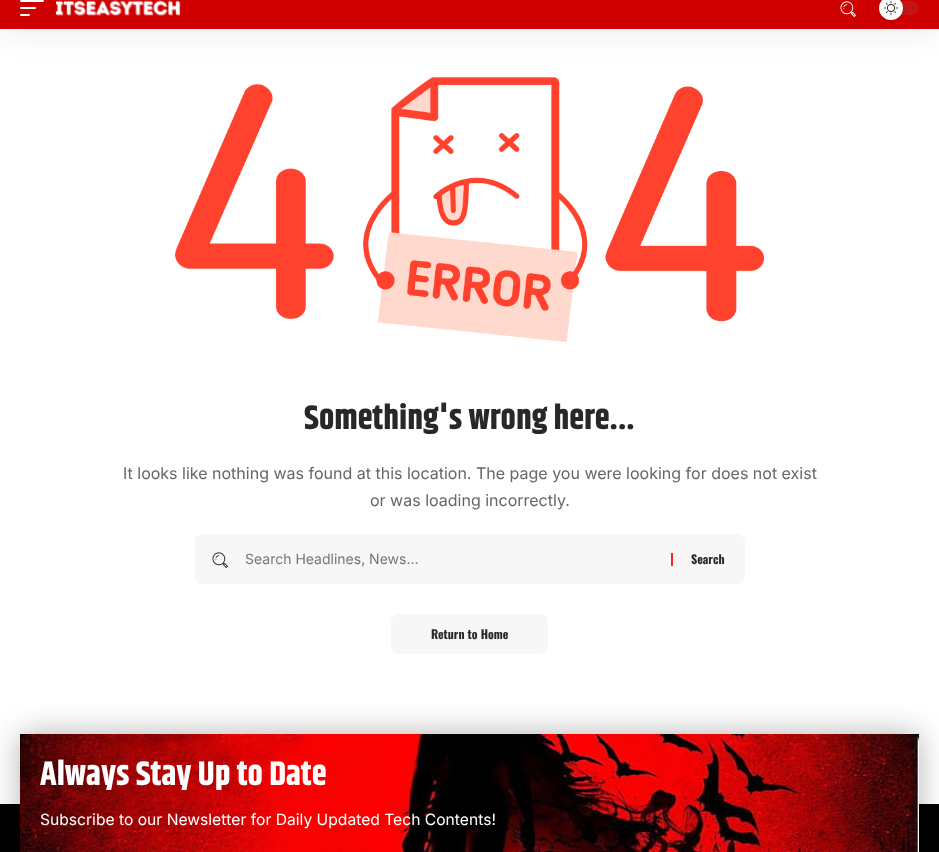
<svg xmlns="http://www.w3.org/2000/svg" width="939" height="852">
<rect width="100%" height="100%" fill="#fff"/>
<image x="175" y="77" width="589" height="265" href="media/4.png"/>
<rect y="-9" width="939" height="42" fill="#00000012" filter="blur(15px)"/>
<rect width="939" height="29" fill="#cf0000"/>
<rect x="20" width="24" height="2" rx="1" fill="#fff"/>
<rect x="20" y="7" width="16" height="2" rx="1" fill="#fff"/>
<rect x="20" y="14" width="10" height="2" rx="1" fill="#fff"/>
<image x="55" y="0" width="126" height="16" href="media/1.png"/>
<image x="840" y="1" width="16" height="16" href="media/2.png"/>
<rect x="868" y="1" width="1" height="14" fill="#be0000"/>
<rect x="879" y="1" width="40" height="14" rx="7" fill="#c41414"/>
<rect x="879" y="-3" width="24" height="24" rx="12" fill="#0000001f" filter="blur(2px)"/>
<circle cx="891" cy="8" r="12" fill="#fff"/>
<image x="884" y="1" width="14" height="14" href="media/3.png"/>
<text x="304" y="429" style="font-family:Khand;font-size:34px;font-weight:bold;fill:#282828">Something's wrong here...</text>
<text x="123" y="479" style="font-family:Inter;font-size:16px;fill:#666">It looks like nothing was found at this location. The page you were looking for does not exist</text>
<text x="370" y="506" style="font-family:Inter;font-size:16px;fill:#666">or was loading incorrectly.</text>
<rect x="195" y="534" width="550" height="50" rx="7" fill="#f7f7f7"/>
<image x="212" y="552" width="16" height="16" href="media/5.png"/>
<text x="245" y="564" style="font-family:Inter;font-size:14px;fill:#757575">Search Headlines, News...</text>
<rect x="671" y="553" width="2" height="13" fill="#ff1f30"/>
<text x="691" y="564" style="font-family:Oswald;font-size:12px;font-weight:bold;fill:#282828">Search</text>
<rect x="391" y="614" width="157" height="40" rx="7" fill="#f7f7f7"/>
<text x="431" y="639" style="font-family:Oswald;font-size:12px;font-weight:bold;fill:#282828">Return to Home</text>
<rect y="804" width="939" height="48" fill="#000"/>
<rect x="20" y="734" width="899" height="7" fill="#07001a"/>
<rect x="20" y="734" width="899" height="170" rx="7" fill="#0000004d" filter="blur(15px)"/>
<image x="20" y="734" width="899" height="118" href="media/6.png"/>
<text x="40" y="785" style="font-family:Khand;font-size:34px;font-weight:bold;fill:#fff">Always Stay Up to Date</text>
<text x="40" y="825" style="font-family:Inter;font-size:15.65px;fill:#fff">Subscribe to our Newsletter for Daily Updated Tech Contents!</text>
</svg>
